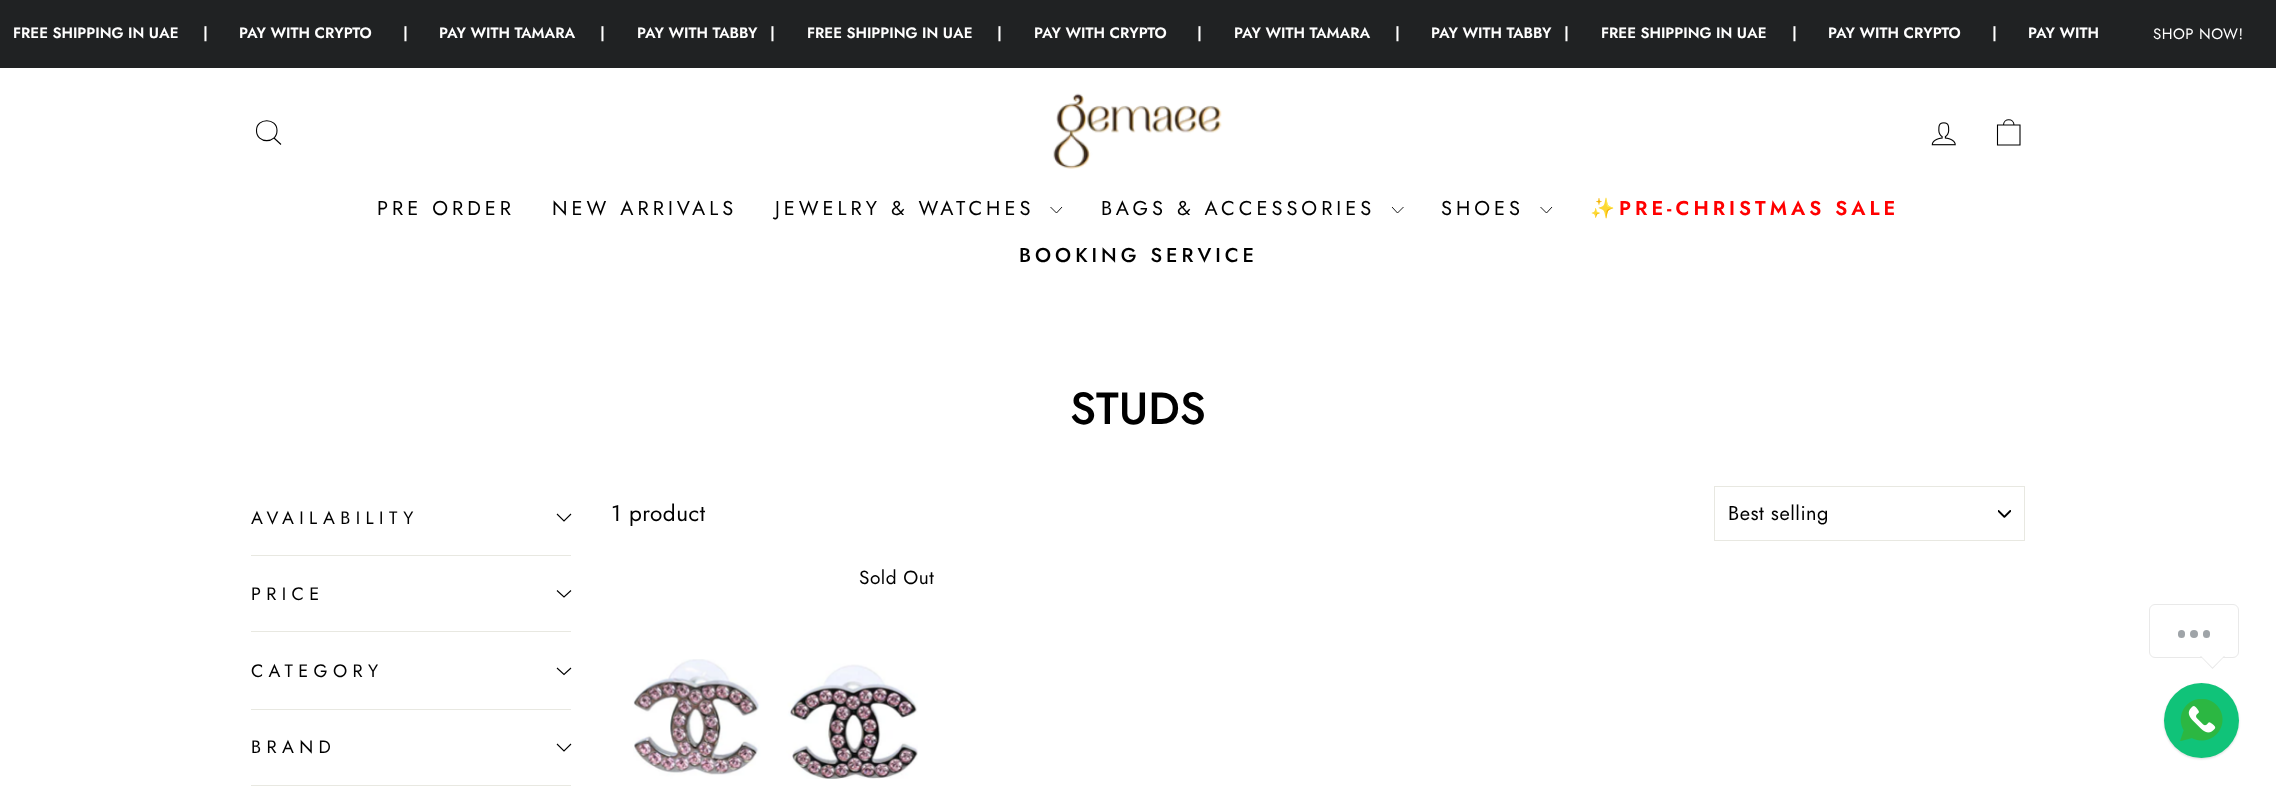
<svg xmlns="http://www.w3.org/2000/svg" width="2276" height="794">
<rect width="100%" height="100%" fill="#fff"/>
<rect width="2276" height="68" fill="#202223"/>
<text x="13" y="38" style="font-family:Jost;font-size:15px;font-weight:600;fill:#fff">FREE SHIPPING IN UAE</text>
<text x="203" y="38" style="font-family:Jost;font-size:15px;font-weight:600;fill:#fff">|</text>
<text x="239" y="38" style="font-family:Jost;font-size:15px;font-weight:600;fill:#fff">PAY WITH CRYPTO</text>
<text x="403" y="38" style="font-family:Jost;font-size:15px;font-weight:600;fill:#fff">|</text>
<text x="439" y="38" style="font-family:Jost;font-size:15px;font-weight:600;fill:#fff">PAY WITH TAMARA</text>
<text x="600" y="38" style="font-family:Jost;font-size:15px;font-weight:600;fill:#fff">|</text>
<text x="637" y="38" style="font-family:Jost;font-size:15px;font-weight:600;fill:#fff">PAY WITH TABBY</text>
<text x="770" y="38" style="font-family:Jost;font-size:15px;font-weight:600;fill:#fff">|</text>
<text x="807" y="38" style="font-family:Jost;font-size:15px;font-weight:600;fill:#fff">FREE SHIPPING IN UAE</text>
<text x="997" y="38" style="font-family:Jost;font-size:15px;font-weight:600;fill:#fff">|</text>
<text x="1034" y="38" style="font-family:Jost;font-size:15px;font-weight:600;fill:#fff">PAY WITH CRYPTO</text>
<text x="1197" y="38" style="font-family:Jost;font-size:15px;font-weight:600;fill:#fff">|</text>
<text x="1234" y="38" style="font-family:Jost;font-size:15px;font-weight:600;fill:#fff">PAY WITH TAMARA</text>
<text x="1395" y="38" style="font-family:Jost;font-size:15px;font-weight:600;fill:#fff">|</text>
<text x="1431" y="38" style="font-family:Jost;font-size:15px;font-weight:600;fill:#fff">PAY WITH TABBY</text>
<text x="1564" y="38" style="font-family:Jost;font-size:15px;font-weight:600;fill:#fff">|</text>
<text x="1601" y="38" style="font-family:Jost;font-size:15px;font-weight:600;fill:#fff">FREE SHIPPING IN UAE</text>
<text x="1792" y="38" style="font-family:Jost;font-size:15px;font-weight:600;fill:#fff">|</text>
<text x="1828" y="38" style="font-family:Jost;font-size:15px;font-weight:600;fill:#fff">PAY WITH CRYPTO</text>
<text x="1992" y="38" style="font-family:Jost;font-size:15px;font-weight:600;fill:#fff">|</text>
<text x="2028" y="38" style="font-family:Jost;font-size:15px;font-weight:600;fill:#fff">PAY WITH</text>
<text x="2153" y="39" style="font-family:Jost;font-size:15px;letter-spacing:0.5px;fill:#fff">SHOP NOW!</text>
<path d="M277 130.5c0 13.5-20.5 13.5-20.5 0c0-13 20.5-13 20.5 0zm4 14l-7-6.5" fill="none" stroke="#000" stroke-width="1.1"/>
<image x="1053" y="93" width="169" height="76" href="media/1.png"/>
<image x="1931" y="122" width="25" height="24" href="media/2.png"/>
<path d="M1997.5 125h22.5v20h-22.5zm6 0c0-7 10.5-7 10.5 0" fill="none" stroke="#000" stroke-width="1.1"/>
<text x="377" y="215" style="font-family:Jost;font-size:20px;letter-spacing:4px;fill:#000">PRE ORDER</text>
<text x="552" y="215" style="font-family:Jost;font-size:20px;letter-spacing:4px;fill:#000">NEW ARRIVALS</text>
<text x="775" y="215" style="font-family:Jost;font-size:20px;letter-spacing:4px;fill:#000">JEWELRY &amp; WATCHES</text>
<path d="M1050.5 207l6 6l5.5-6" fill="none" stroke="#000" stroke-width="0.9"/>
<text x="1101" y="215" style="font-family:Jost;font-size:20px;letter-spacing:4px;fill:#000">BAGS &amp; ACCESSORIES</text>
<path d="M1392 207l5.5 6l6-6" fill="none" stroke="#000" stroke-width="0.9"/>
<text x="1441" y="215" style="font-family:Jost;font-size:20px;letter-spacing:4px;fill:#000">SHOES</text>
<path d="M1540.5 207l6 6l5.5-6" fill="none" stroke="#000" stroke-width="0.9"/>
<text x="1590" y="215" style="font-family:Noto Color Emoji;font-size:20px;font-weight:bold;letter-spacing:4px;fill:#f00">✨</text>
<text x="1619" y="215" style="font-family:Jost;font-size:20px;font-weight:600;letter-spacing:4px;fill:#f00">PRE-CHRISTMAS SALE</text>
<text x="1019" y="262" style="font-family:Jost;font-size:20px;font-weight:500;letter-spacing:4px;fill:#000">BOOKING SERVICE</text>
<text x="1070" y="424" style="font-family:Jost;font-size:45px;font-weight:500;fill:#000">STUDS</text>
<text x="251" y="524" style="font-family:Jost;font-size:18px;letter-spacing:5.4px;fill:#000">AVAILABILITY</text>
<path d="M557 514l7 7l7-7" fill="none" stroke="#000" stroke-width="1.1"/>
<rect x="251" y="555" width="320" height="1" fill="#e8e8e1"/>
<text x="251" y="600" style="font-family:Jost;font-size:18px;letter-spacing:5.4px;fill:#000">PRICE</text>
<path d="M557 590.5l7 6.5l7-6.5" fill="none" stroke="#000" stroke-width="1.1"/>
<rect x="251" y="631" width="320" height="1" fill="#e8e8e1"/>
<text x="251" y="677" style="font-family:Jost;font-size:18px;letter-spacing:5.4px;fill:#000">CATEGORY</text>
<path d="M557 668l7 6.5l7-6.5" fill="none" stroke="#000" stroke-width="1.1"/>
<rect x="251" y="709" width="320" height="1" fill="#e8e8e1"/>
<text x="251" y="753" style="font-family:Jost;font-size:18px;letter-spacing:5.4px;fill:#000">BRAND</text>
<path d="M557 744l7 7l7-7" fill="none" stroke="#000" stroke-width="1.1"/>
<rect x="251" y="785" width="320" height="1" fill="#e8e8e1"/>
<text x="611" y="521" style="font-family:Jost;font-size:22.5px;letter-spacing:0.5px;fill:#000">1 product</text>
<image x="1998" y="510" width="13" height="8" href="media/3.png"/>
<rect x="1714.5" y="486.5" width="310" height="54" fill="none" stroke="#e8e8e1"/>
<text x="1728" y="520" style="font-family:Jost;font-size:20px;letter-spacing:0.5px;fill:#000">Best selling</text>
<text x="859" y="584" style="font-family:Jost;font-size:19px;letter-spacing:0.5px;fill:#000">Sold Out</text>
<image x="633" y="659" width="285" height="120" href="media/4.png"/>
<rect x="2149.5" y="604.5" width="89" height="53" rx="5.5" fill="none" stroke="#e9e9e9"/>
<rect x="2178" y="630" width="7" height="8" rx="3.5" fill="#9fa4a8"/>
<circle cx="2194" cy="634" r="4" fill="#9fa4a8"/>
<rect x="2203" y="630" width="7" height="8" rx="3.5" fill="#9fa4a8"/>
<path d="M2200 656h25l-12.5 13z" fill="#e9e9e9"/>
<path d="M2201 656h23l-11.5 11.5z" fill="#fff"/>
<rect x="2164" y="684" width="75" height="75" rx="37.5" fill="#00000026" filter="blur(1px)"/>
<circle cx="2201.5" cy="720.5" r="37.5" fill="#10c379"/>
<image x="2180" y="699" width="43" height="42" href="media/5.png"/>
</svg>
